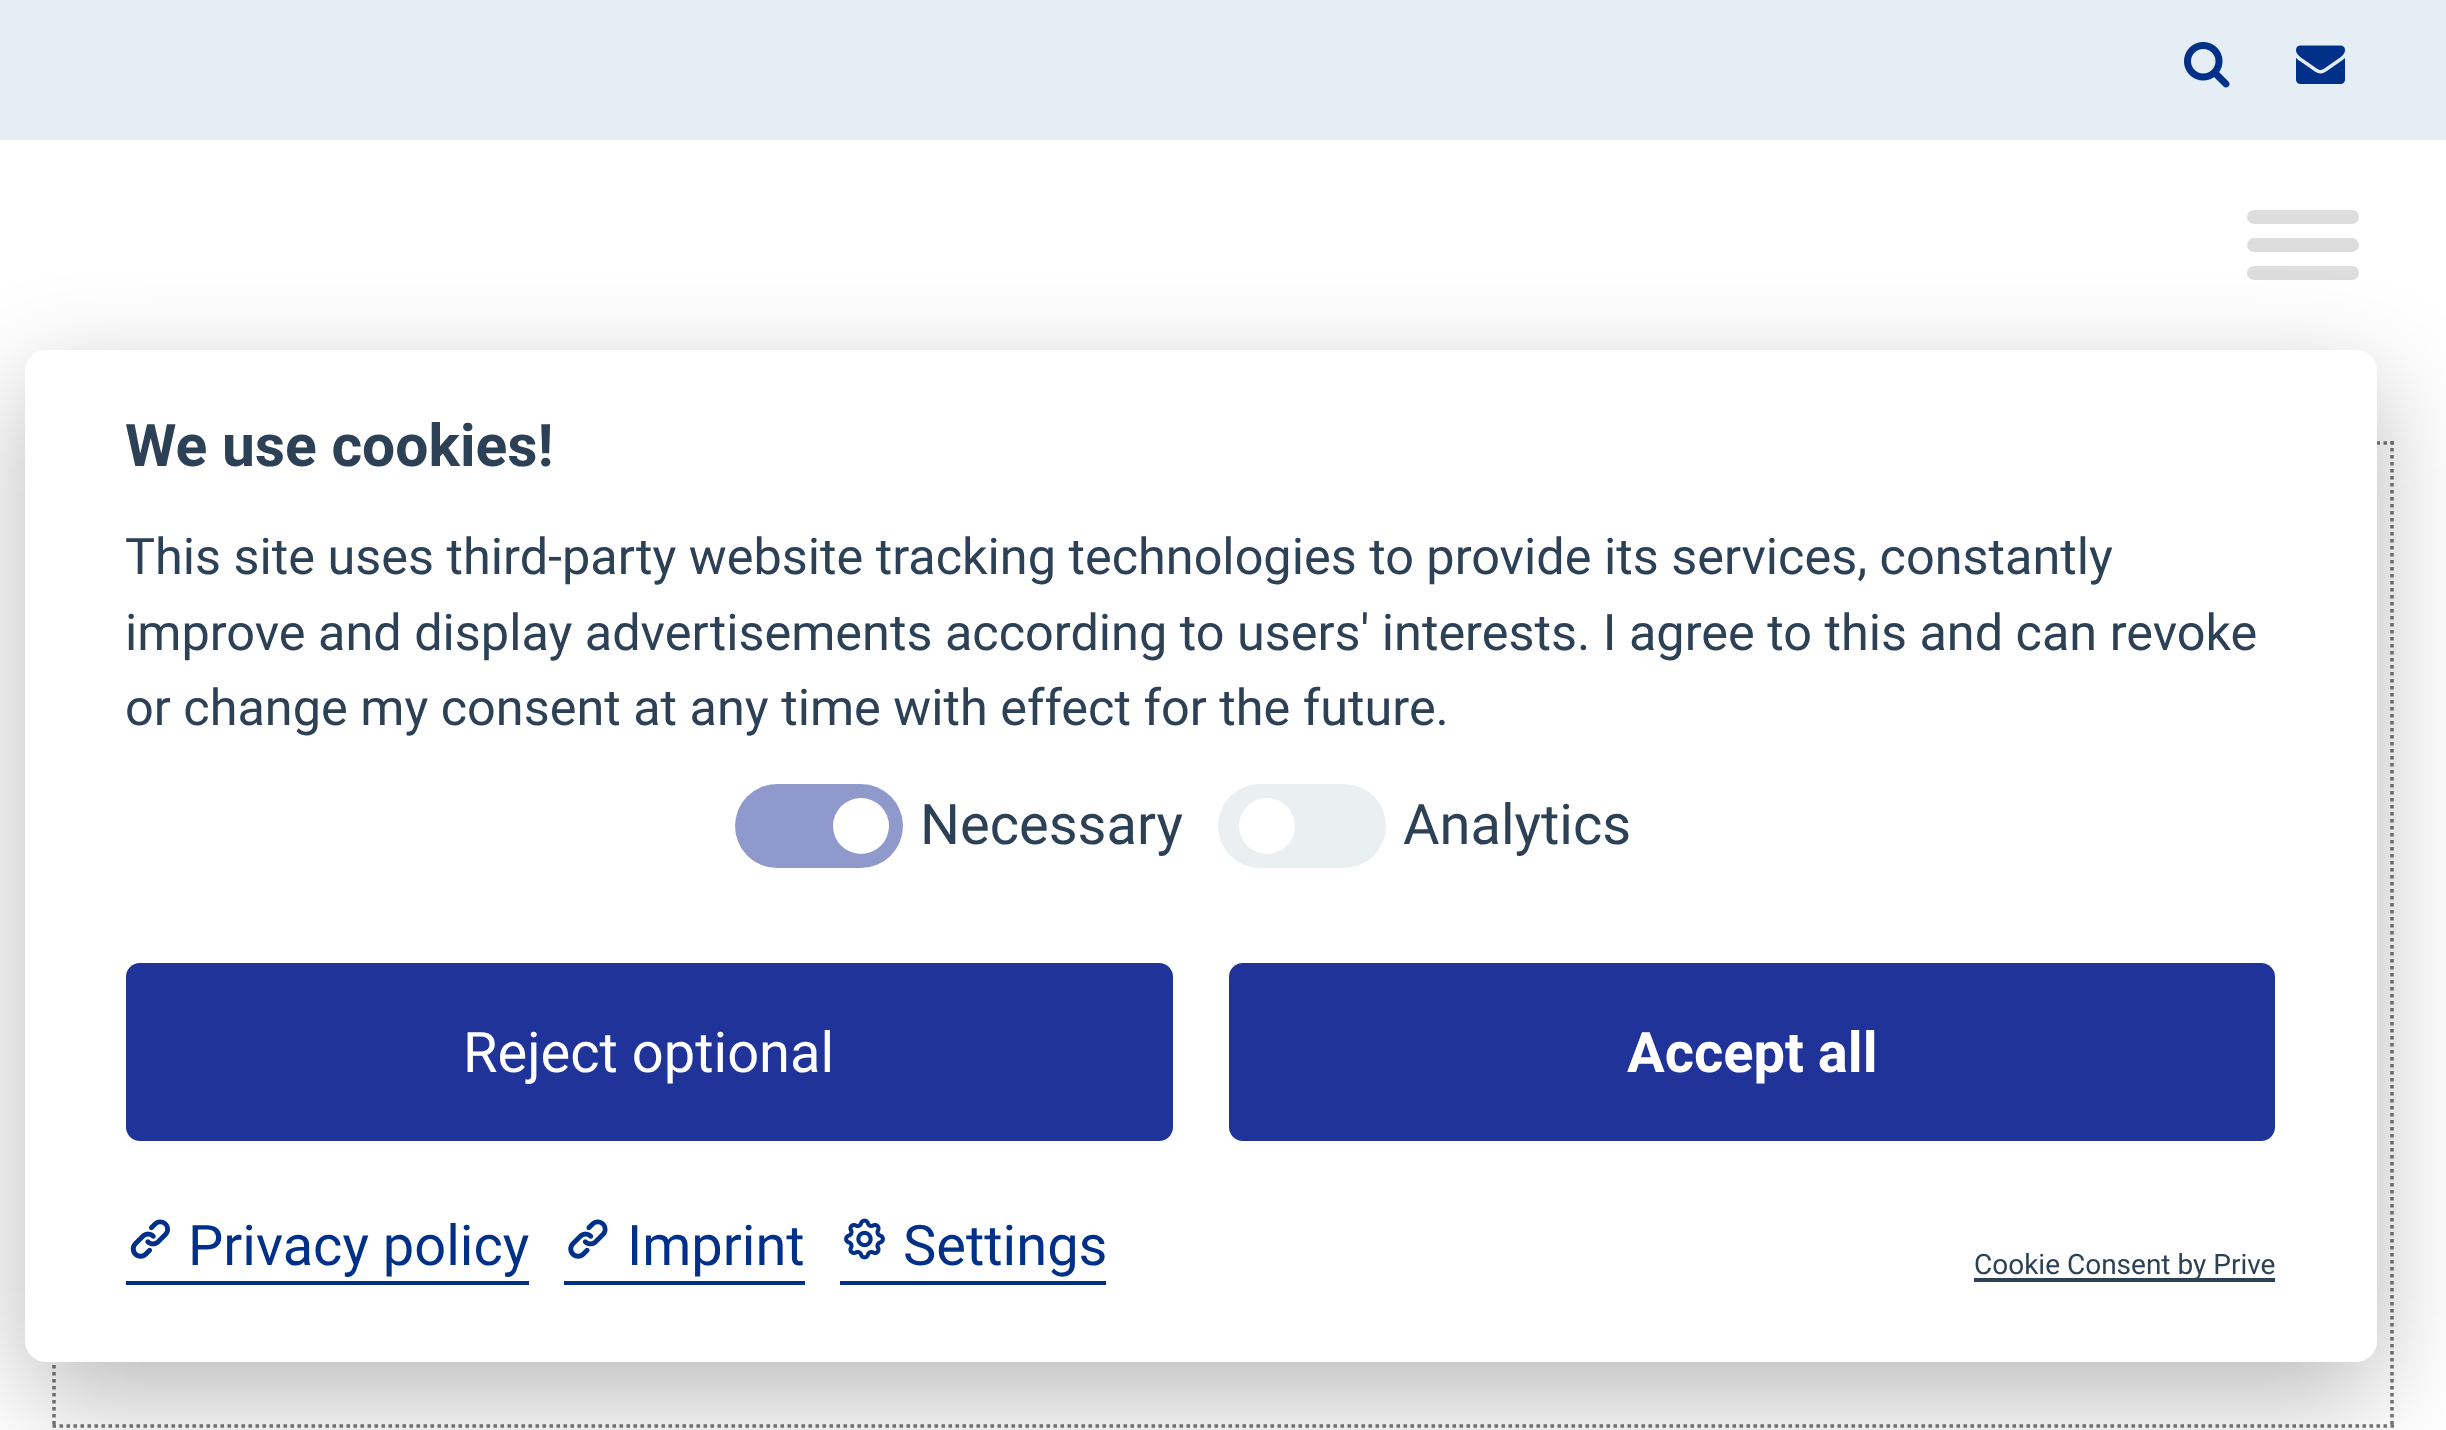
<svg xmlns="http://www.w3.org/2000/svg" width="2446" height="1430">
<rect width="100%" height="100%" fill="#fff"/>
<rect width="2446" height="140" fill="#e5eef5"/>
<image x="2184" y="42" width="46" height="46" href="media/1.png"/>
<image x="2296" y="45" width="49" height="39" href="media/2.png"/>
<rect x="2247" y="210" width="112" height="14" rx="7" fill="#ddd"/>
<rect x="2247" y="238" width="112" height="14" rx="7" fill="#ddd"/>
<rect x="2247" y="266" width="112" height="14" rx="7" fill="#ddd"/>
<path d="M52.5 443h2341.5" fill="none" stroke="#777" stroke-width="3.5" stroke-dasharray="3.5 3.5"/>
<path d="M2392 441v987" fill="none" stroke="#777" stroke-width="3.5" stroke-dasharray="3.5 3.5"/>
<path d="M52.5 1426h2341.5" fill="none" stroke="#777" stroke-width="3.5" stroke-dasharray="3.5 3.5"/>
<path d="M54 441v987" fill="none" stroke="#777" stroke-width="3.5" stroke-dasharray="3.5 3.5"/>
<rect x="25" y="385" width="2352" height="1012" rx="21" fill="#02020347" filter="blur(52.5px)"/>
<rect x="25" y="350" width="2352" height="1012" rx="21" fill="#fff"/>
<text x="125" y="466" style="font-family:Roboto;font-size:58.75px;font-weight:bold;fill:#2d4156">We use cookies!</text>
<text x="125" y="574" style="font-family:Roboto;font-size:50.4px;fill:#2d4156">This site uses third-party website tracking technologies to provide its services, constantly</text>
<text x="125" y="650" style="font-family:Roboto;font-size:50.4px;fill:#2d4156">improve and display advertisements according to users' interests. I agree to this and can revoke</text>
<text x="125" y="725" style="font-family:Roboto;font-size:50.4px;fill:#2d4156">or change my consent at any time with effect for the future.</text>
<rect x="735" y="784" width="168" height="84" rx="42" fill="#8f99cc"/>
<circle cx="861" cy="826" r="28" fill="#fff"/>
<text x="920" y="844" style="font-family:Roboto;font-size:56px;fill:#2d4156">Necessary</text>
<rect x="1218" y="784" width="168" height="84" rx="42" fill="#eaeff2"/>
<circle cx="1267" cy="826" r="28" fill="#fff"/>
<text x="1403" y="844" style="font-family:Roboto;font-size:56px;fill:#2d4156">Analytics</text>
<rect x="126" y="963" width="1047" height="178" rx="14" fill="#1f3399"/>
<text x="463" y="1072" style="font-family:Roboto;font-size:56px;fill:#fff">Reject optional</text>
<rect x="1229" y="963" width="1046" height="178" rx="14" fill="#1f3399"/>
<text x="1627" y="1072" style="font-family:Roboto;font-size:56px;font-weight:bold;fill:#fff">Accept all</text>
<rect x="126" y="1281" width="403" height="4" fill="#003087"/>
<image x="130" y="1219" width="40" height="40" href="media/3.png"/>
<text x="188" y="1265" style="font-family:Roboto;font-size:56px;fill:#003087">Privacy policy</text>
<rect x="564" y="1281" width="241" height="4" fill="#003087"/>
<image x="568" y="1219" width="40" height="40" href="media/4.png"/>
<text x="627" y="1265" style="font-family:Roboto;font-size:56px;fill:#003087">Imprint</text>
<rect x="840" y="1281" width="266" height="4" fill="#003087"/>
<image x="844" y="1218" width="41" height="42" href="media/5.png"/>
<text x="903" y="1265" style="font-family:Roboto;font-size:56px;fill:#003087">Settings</text>
<rect x="1974" y="1278" width="301" height="4" fill="#2d4156"/>
<text x="1974" y="1274" style="font-family:Roboto;font-size:28px;fill:#2d4156">Cookie Consent by Prive</text>
</svg>
